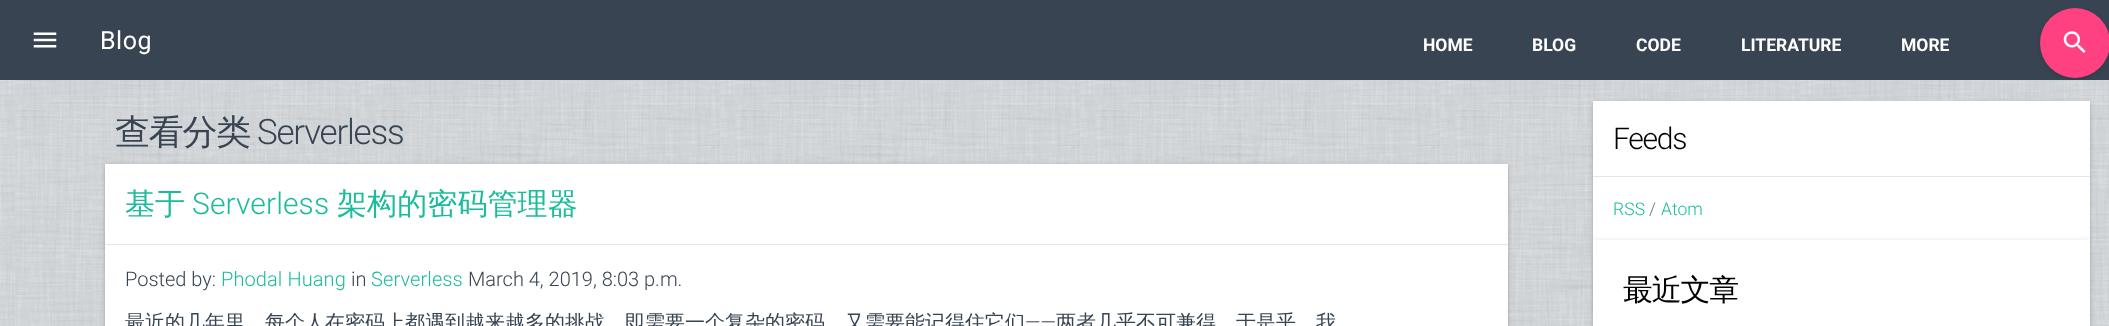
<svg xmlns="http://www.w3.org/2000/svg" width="2109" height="326">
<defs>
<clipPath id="clip1"><rect x="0" y="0" width="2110" height="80"/></clipPath>
</defs>
<rect width="100%" height="100%" fill="#fff"/>
<image x="0" y="80" width="2109" height="246" href="media/1.png"/>
<rect width="2109" height="80" fill="#384452"/>
<image x="33" y="32" width="24" height="16" href="media/2.png"/>
<text x="100" y="49" style="font-family:Roboto;font-size:25px;letter-spacing:0.5px;fill:#fff">Blog</text>
<text x="1423" y="51" style="font-family:Roboto;font-size:17.5px;font-weight:bold;fill:#fff">HOME</text>
<text x="1532" y="51" style="font-family:Roboto;font-size:17.5px;font-weight:bold;fill:#fff">BLOG</text>
<text x="1636" y="51" style="font-family:Roboto;font-size:17.5px;font-weight:bold;fill:#fff">CODE</text>
<text x="1741" y="51" style="font-family:Roboto;font-size:17.5px;font-weight:bold;fill:#fff">LITERATURE</text>
<text x="1901" y="51" style="font-family:Roboto;font-size:17.5px;font-weight:bold;fill:#fff">MORE</text>
<g clip-path="url(#clip1)">
<rect x="2041" y="11" width="68" height="68" rx="34" fill="#00000033" filter="blur(2.5px)"/>
</g>
<circle cx="2075" cy="43" r="35" fill="#ff4081"/>
<image x="2063" y="31" width="23" height="22" href="media/3.png"/>
<text x="115" y="144" style="font-family:WenQuanYi Zen Hei;font-size:35px;font-weight:500;letter-spacing:-1.25px;fill:#384452">查看分类</text>
<text x="257" y="144" style="font-family:Roboto;font-size:35px;font-weight:300;letter-spacing:-1.25px;fill:#384452">Serverless</text>
<rect x="105" y="165" width="1403" height="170" fill="#0000001f" filter="blur(3px)"/>
<rect x="105" y="166" width="1403" height="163" fill="#00000024" filter="blur(1px)"/>
<rect x="105" y="164" width="1403" height="162" fill="#fff"/>
<rect x="105" y="244" width="1403" height="1" fill="#e6e6e6"/>
<text x="125" y="214" style="font-family:WenQuanYi Zen Hei;font-size:30px;font-weight:500;letter-spacing:0.1px;fill:#1abc9c">基于</text>
<text x="192" y="214" style="font-family:Roboto;font-size:30px;font-weight:300;letter-spacing:0.1px;fill:#1abc9c">Serverless</text>
<text x="337" y="214" style="font-family:WenQuanYi Zen Hei;font-size:30px;font-weight:500;letter-spacing:0.1px;fill:#1abc9c">架构的密码管理器</text>
<text x="125" y="286" style="font-family:Roboto;font-size:20px;font-weight:300;fill:#384452">Posted by:</text>
<text x="221" y="286" style="font-family:Roboto;font-size:20px;font-weight:300;letter-spacing:0.1px;fill:#1abc9c">Phodal Huang</text>
<text x="351" y="286" style="font-family:Roboto;font-size:20px;font-weight:300;fill:#384452">in</text>
<text x="371" y="286" style="font-family:Roboto;font-size:20px;font-weight:300;letter-spacing:0.1px;fill:#1abc9c">Serverless</text>
<text x="468" y="286" style="font-family:Roboto;font-size:20px;font-weight:300;fill:#384452">March 4, 2019, 8:03 p.m.</text>
<text x="125" y="329" style="font-family:WenQuanYi Zen Hei;font-size:20px;font-weight:500;fill:#384452">最近的几年里，每个人在密码上都遇到越来越多的挑战，即需要一个复杂的密码，又需要能记得住它们</text>
<text x="1025" y="329" style="font-family:Roboto;font-size:20px;font-weight:300;fill:#384452">——</text>
<text x="1056" y="329" style="font-family:WenQuanYi Zen Hei;font-size:20px;font-weight:500;fill:#384452">两者几乎不可兼得。于是乎，我</text>
<rect x="1593" y="103" width="497" height="138" fill="#0000001f" filter="blur(3px)"/>
<rect x="1593" y="104" width="497" height="139" fill="#00000024" filter="blur(1px)"/>
<rect x="1593" y="101" width="497" height="139" fill="#fff"/>
<rect x="1593" y="176" width="497" height="1" fill="#e6e6e6"/>
<text x="1613" y="149" style="font-family:Roboto;font-size:30px;font-weight:300;letter-spacing:-1.25px;fill:#000">Feeds</text>
<text x="1613" y="215" style="font-family:Roboto;font-size:17.5px;font-weight:300;letter-spacing:0.1px;fill:#1abc9c">RSS</text>
<text x="1649" y="215" style="font-family:Roboto;font-size:17.5px;font-weight:300;fill:#757575">/</text>
<text x="1661" y="215" style="font-family:Roboto;font-size:17.5px;font-weight:300;letter-spacing:0.1px;fill:#1abc9c">Atom</text>
<rect x="1593" y="241" width="497" height="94" fill="#0000001f" filter="blur(3px)"/>
<rect x="1593" y="243" width="497" height="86" fill="#00000024" filter="blur(1px)"/>
<rect x="1593" y="240" width="497" height="86" fill="#fff"/>
<text x="1623" y="300" style="font-family:WenQuanYi Zen Hei;font-size:30px;font-weight:500;letter-spacing:-1.25px;fill:#000">最近文章</text>
</svg>
